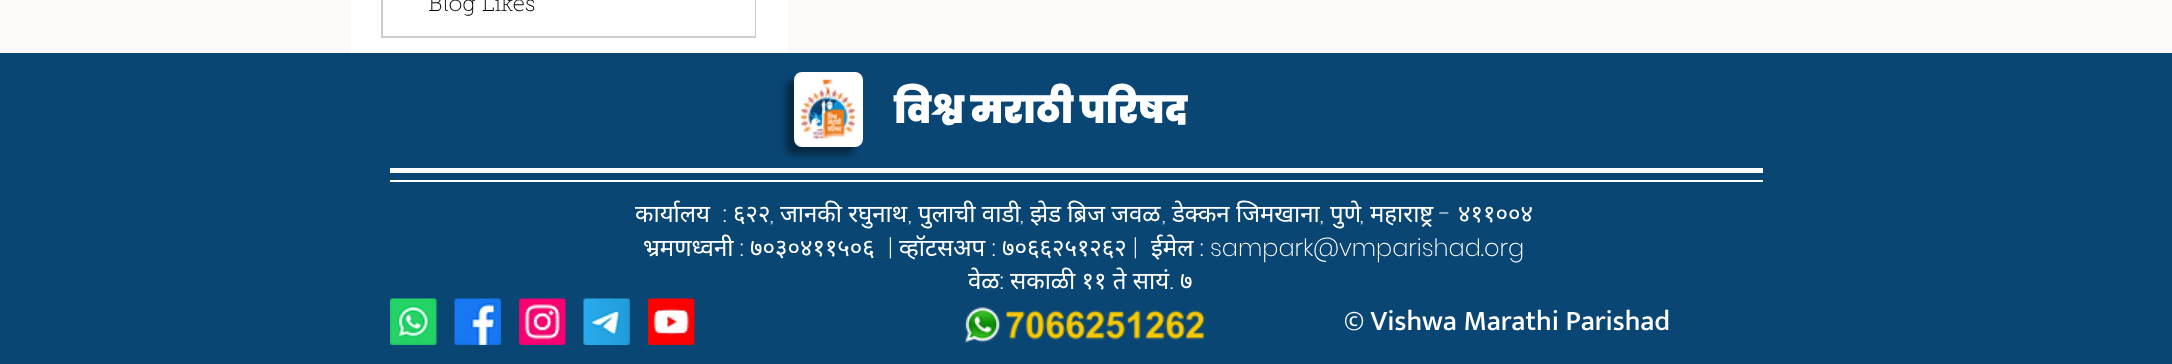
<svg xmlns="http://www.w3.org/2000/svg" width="2172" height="364">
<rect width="100%" height="100%" fill="#fcfaf9"/>
<rect x="351" width="437" height="53" fill="#fff"/>
<rect x="382" y="-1" width="373" height="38" fill="none" stroke="#ccc" stroke-width="2"/>
<rect x="754" width="1" height="36" fill="#fff"/>
<text x="428" y="11" style="font-family:'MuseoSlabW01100';font-size:22.5px;font-weight:100;fill:#000">Blog Likes</text>
<rect y="53" width="2172" height="311" fill="#0a4674"/>
<rect x="786" y="80" width="69" height="75" rx="8" fill="#00000066" filter="blur(3px)"/>
<rect x="798" y="76" width="61" height="67" rx="4" fill="#fff" stroke="#fff" stroke-width="8"/>
<image x="801" y="79" width="54" height="61" href="media/1.png"/>
<text x="894" y="123" style="font-family:Poppins;font-size:37.5px;font-weight:900;fill:#fff">विश्व मराठी परिषद</text>
<rect x="390" y="168" width="1373" height="5" fill="#fff"/>
<rect x="390" y="180" width="1373" height="2" fill="#fff"/>
<text x="635" y="222" style="font-family:Noto Sans;font-size:24px;fill:#fff">कार्यालय</text>
<text x="723" y="222" style="font-family:Poppins;font-size:24px;font-weight:200;fill:#fff">:</text>
<text x="733" y="222" style="font-family:Noto Sans;font-size:24px;fill:#fff">६२२</text>
<text x="780" y="222" style="font-family:Noto Sans;font-size:24px;fill:#fff">जानकी रघुनाथ</text>
<text x="908" y="222" style="font-family:Poppins;font-size:24px;font-weight:200;fill:#fff">,</text>
<text x="918" y="222" style="font-family:Noto Sans;font-size:24px;fill:#fff">पुलाची वाडी</text>
<text x="1020" y="222" style="font-family:Poppins;font-size:24px;font-weight:200;fill:#fff">,</text>
<text x="1030" y="222" style="font-family:Noto Sans;font-size:24px;fill:#fff">झेड ब्रिज जवळ</text>
<text x="1172" y="222" style="font-family:Noto Sans;font-size:24px;fill:#fff">डेक्कन जिमखाना</text>
<text x="1320" y="222" style="font-family:Poppins;font-size:24px;font-weight:200;fill:#fff">,</text>
<text x="1330" y="222" style="font-family:Noto Sans;font-size:24px;fill:#fff">पुणे</text>
<text x="1370" y="222" style="font-family:Noto Sans;font-size:24px;fill:#fff">महाराष्ट्र</text>
<text x="1440" y="222" style="font-family:Poppins;font-size:24px;font-weight:200;fill:#fff">-</text>
<text x="1458" y="222" style="font-family:Noto Sans;font-size:24px;fill:#fff">४११००४</text>
<text x="770" y="222" style="font-family:Poppins;font-size:24px;font-weight:200;fill:#fff">,</text>
<text x="1162" y="222" style="font-family:Poppins;font-size:24px;font-weight:200;fill:#fff">,</text>
<text x="1360" y="222" style="font-family:Poppins;font-size:24px;font-weight:200;fill:#fff">,</text>
<text x="643" y="256" style="font-family:Noto Sans;font-size:24px;fill:#fff">भ्रमणध्वनी</text>
<text x="740" y="256" style="font-family:Poppins;font-size:24px;font-weight:200;fill:#fff">:</text>
<text x="750" y="256" style="font-family:Noto Sans;font-size:24px;fill:#fff">७०३०४११५०६</text>
<text x="888" y="256" style="font-family:Poppins;font-size:24px;font-weight:200;fill:#fff">|</text>
<text x="899" y="256" style="font-family:Noto Sans;font-size:24px;fill:#fff">व्हॉटसअप</text>
<text x="992" y="256" style="font-family:Poppins;font-size:24px;font-weight:200;fill:#fff">:</text>
<text x="1002" y="256" style="font-family:Noto Sans;font-size:24px;fill:#fff">७०६६२५१२६२</text>
<text x="1133" y="256" style="font-family:Poppins;font-size:24px;font-weight:200;fill:#fff">|</text>
<text x="1151" y="256" style="font-family:Noto Sans;font-size:24px;fill:#fff">ईमेल</text>
<text x="1200" y="256" style="font-family:Poppins;font-size:24px;font-weight:200;fill:#fff">: sampark@vmparishad.org</text>
<text x="968" y="289" style="font-family:Noto Sans;font-size:24px;fill:#fff">वेळ</text>
<text x="1000" y="289" style="font-family:Poppins;font-size:24px;font-weight:200;fill:#fff">:</text>
<text x="1010" y="289" style="font-family:Noto Sans;font-size:24px;fill:#fff">सकाळी ११ ते सायं</text>
<text x="1170" y="289" style="font-family:Poppins;font-size:24px;font-weight:200;fill:#fff">.</text>
<text x="1180" y="289" style="font-family:Noto Sans;font-size:24px;fill:#fff">७</text>
<image x="390" y="298" width="47" height="47" href="media/2.png"/>
<image x="454" y="298" width="47" height="47" href="media/3.png"/>
<image x="519" y="298" width="47" height="47" href="media/4.png"/>
<image x="583" y="298" width="47" height="47" href="media/5.png"/>
<image x="648" y="298" width="47" height="47" href="media/6.png"/>
<image x="964" y="307" width="241" height="36" href="media/7.png"/>
<text x="1344" y="330" style="font-family:Mukta;font-size:28.5px;font-weight:500;fill:#fff">© Vishwa Marathi Parishad</text>
</svg>
